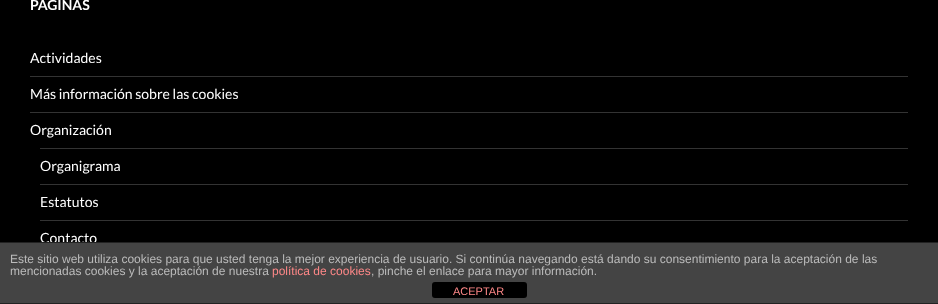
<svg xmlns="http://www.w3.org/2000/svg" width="938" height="304">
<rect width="100%" height="100%" fill="#000"/>
<text x="30" y="10" style="font-family:Lato;font-size:14px;font-weight:bold;fill:#fff">PÁGINAS</text>
<text x="30" y="63" style="font-family:Lato;font-size:14px;fill:#fff">Actividades</text>
<rect x="30" y="76" width="878" height="1" fill="#333"/>
<text x="30" y="99" style="font-family:Lato;font-size:14px;fill:#fff">Más información sobre las cookies</text>
<rect x="30" y="112" width="878" height="1" fill="#333"/>
<text x="30" y="135" style="font-family:Lato;font-size:14px;fill:#fff">Organización</text>
<rect x="40" y="148" width="868" height="1" fill="#333"/>
<text x="40" y="171" style="font-family:Lato;font-size:14px;fill:#fff">Organigrama</text>
<rect x="40" y="184" width="868" height="1" fill="#333"/>
<text x="40" y="207" style="font-family:Lato;font-size:14px;fill:#fff">Estatutos</text>
<rect x="40" y="220" width="868" height="1" fill="#333"/>
<text x="40" y="243" style="font-family:Lato;font-size:14px;fill:#fff">Contacto</text>
<rect y="243" width="938" height="60" fill="#444"/>
<rect y="242" width="938" height="1" fill="#222"/>
<rect y="303" width="938" height="1" fill="#222"/>
<text x="10" y="263" style="font-family:Liberation Sans;font-size:12px;fill:#bbb">Este sitio web utiliza cookies para que usted tenga la mejor experiencia de usuario. Si continúa navegando está dando su consentimiento para la aceptación de las</text>
<text x="10" y="275" style="font-family:Liberation Sans;font-size:12px;fill:#bbb">mencionadas cookies y la aceptación de nuestra</text>
<text x="272" y="275" style="font-family:Liberation Sans;font-size:12px;fill:#f88">política de cookies</text>
<text x="371" y="275" style="font-family:Liberation Sans;font-size:12px;fill:#bbb">, pinche el enlace para mayor información.</text>
<rect x="432" y="282" width="95" height="16" rx="3" fill="#000"/>
<text x="453" y="295" style="font-family:Liberation Sans;font-size:11px;fill:#f88">ACEPTAR</text>
</svg>
